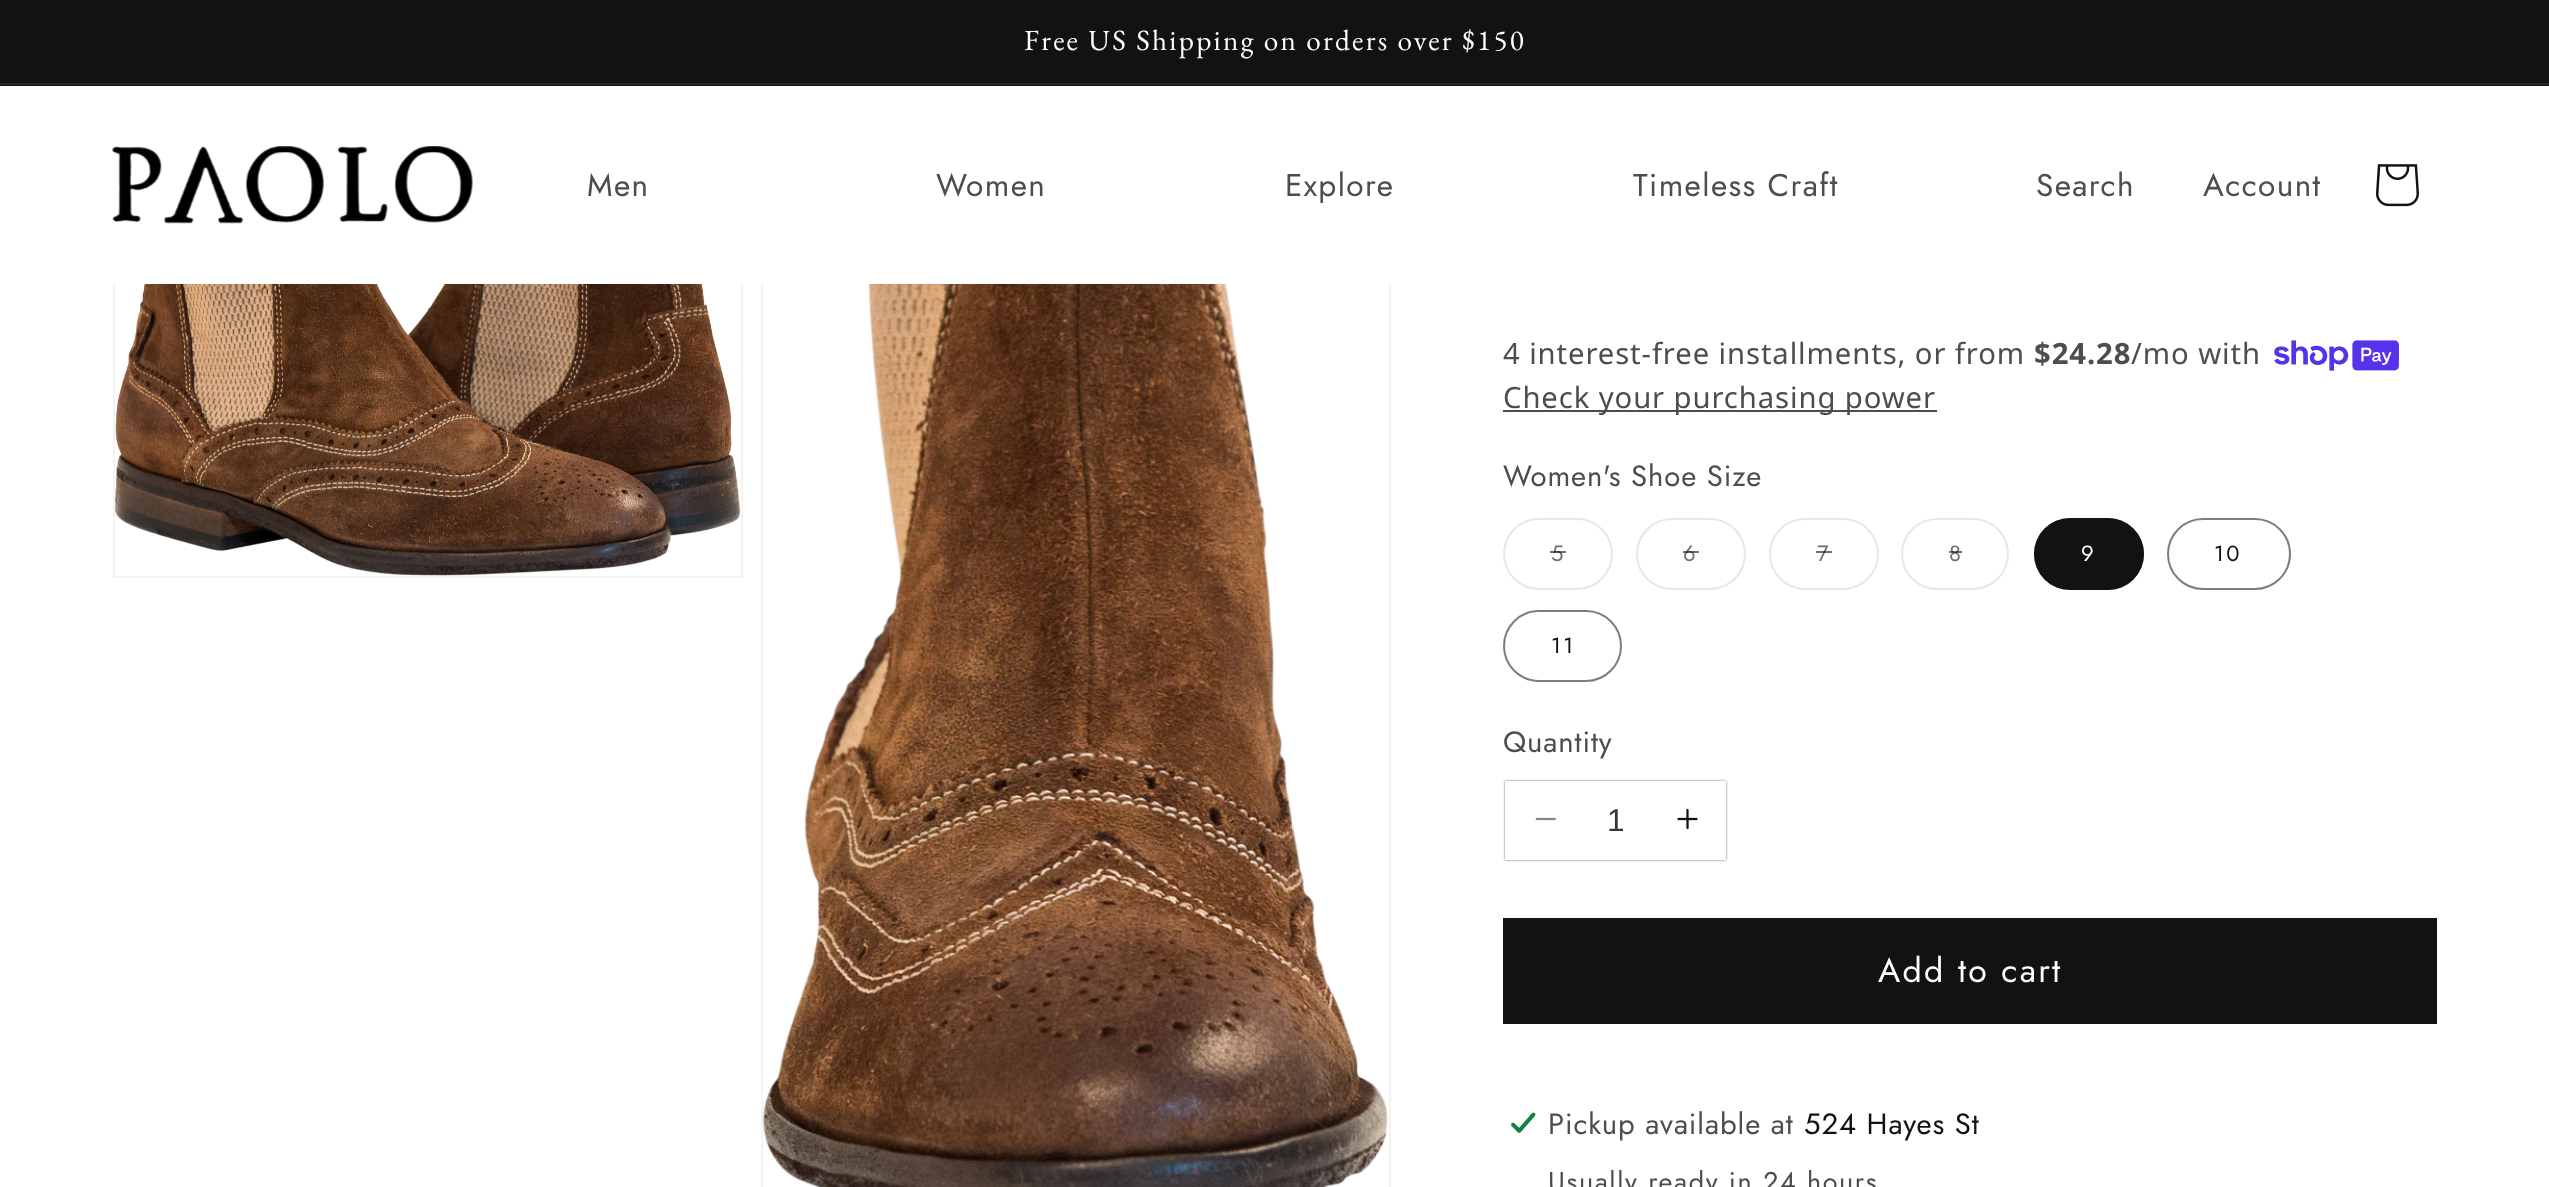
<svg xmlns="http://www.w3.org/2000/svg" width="2549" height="1187">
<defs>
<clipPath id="clip1"><path d="M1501 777h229v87h-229zm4 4h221v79h-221z" clip-rule="evenodd"/></clipPath>
</defs>
<rect width="100%" height="100%" fill="#fff"/>
<rect width="2549" height="86" fill="#121212"/>
<rect y="83" width="2549" height="2" fill="#252525"/>
<text x="1024" y="50" style="font-family:EB Garamond;font-size:29.25px;letter-spacing:2.25px;fill:#fff">Free US Shipping on orders over $150</text>
<rect x="114" y="183" width="628" height="394" fill="none" stroke="#f3f3f3" stroke-width="2"/>
<rect x="762" y="183" width="628" height="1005" fill="none" stroke="#f3f3f3" stroke-width="2"/>
<rect x="113" y="182" width="1278" height="102" fill="#fff"/>
<image x="112" y="146" width="361" height="78" href="media/1.png"/>
<text x="587" y="196" style="font-family:Jost;font-size:31.5px;letter-spacing:1.4px;fill:#4d4d4d">Men</text>
<text x="936" y="196" style="font-family:Jost;font-size:31.5px;letter-spacing:1.4px;fill:#4d4d4d">Women</text>
<text x="1285" y="196" style="font-family:Jost;font-size:31.5px;letter-spacing:1.4px;fill:#4d4d4d">Explore</text>
<text x="1633" y="196" style="font-family:Jost;font-size:31.5px;letter-spacing:1.4px;fill:#4d4d4d">Timeless Craft</text>
<text x="2036" y="196" style="font-family:Jost;font-size:31.5px;letter-spacing:1.4px;fill:#4d4d4d">Search</text>
<text x="2203" y="196" style="font-family:Jost;font-size:31.5px;letter-spacing:1.4px;fill:#4d4d4d">Account</text>
<image x="2376" y="164" width="43" height="43" href="media/2.png"/>
<image x="115" y="284" width="625" height="292" href="media/3.png"/>
<image x="763" y="284" width="625" height="903" href="media/4.png"/>
<text x="1503" y="364" style="font-family:Noto Sans;font-size:29.25px;letter-spacing:0.9px;fill:#4d4d4d">4 interest-free installments, or from</text>
<text x="2034" y="364" style="font-family:Noto Sans;font-size:29.25px;font-weight:bold;letter-spacing:0.9px;fill:#4d4d4d">$24.28</text>
<text x="2131" y="364" style="font-family:Noto Sans;font-size:29.25px;letter-spacing:0.9px;fill:#4d4d4d">/mo with</text>
<image x="2274" y="340" width="125" height="31" href="media/5.png"/>
<rect x="1503" y="410" width="434" height="2" fill="#4d4d4d"/>
<text x="1503" y="408" style="font-family:Noto Sans;font-size:29.25px;letter-spacing:0.9px;fill:#4d4d4d">Check your purchasing power</text>
<text x="1503" y="486" style="font-family:Jost;font-size:29.25px;letter-spacing:0.9px;fill:#4d4d4d">Women's Shoe Size</text>
<rect x="1504" y="519" width="108" height="70" rx="35" fill="none" stroke="#e7e7e7" stroke-width="2"/>
<text x="1551" y="561" style="font-family:Jost;font-size:22px;letter-spacing:2.25px;fill:#717171">5</text>
<rect x="1550" y="551" width="16" height="2" fill="#12121299"/>
<rect x="1637" y="519" width="108" height="70" rx="35" fill="none" stroke="#e7e7e7" stroke-width="2"/>
<text x="1683" y="561" style="font-family:Jost;font-size:22px;letter-spacing:2.25px;fill:#717171">6</text>
<rect x="1683" y="551" width="16" height="2" fill="#12121299"/>
<rect x="1770" y="519" width="108" height="70" rx="35" fill="none" stroke="#e7e7e7" stroke-width="2"/>
<text x="1817" y="561" style="font-family:Jost;font-size:22px;letter-spacing:2.25px;fill:#717171">7</text>
<rect x="1816" y="551" width="16" height="2" fill="#12121299"/>
<rect x="1902" y="519" width="106" height="70" rx="35" fill="none" stroke="#e7e7e7" stroke-width="2"/>
<text x="1949" y="561" style="font-family:Jost;font-size:22px;letter-spacing:2.25px;fill:#717171">8</text>
<rect x="1949" y="551" width="13" height="2" fill="#12121299"/>
<rect x="2034" y="518" width="110" height="72" rx="36" fill="#121212"/>
<rect x="2035" y="519" width="108" height="70" rx="35" fill="none" stroke="#1212128c" stroke-width="2"/>
<text x="2081" y="561" style="font-family:Jost;font-size:22px;letter-spacing:2.25px;fill:#fff">9</text>
<rect x="2168" y="519" width="122" height="70" rx="35" fill="none" stroke="#7d7d7d" stroke-width="2"/>
<text x="2214" y="561" style="font-family:Jost;font-size:22px;letter-spacing:2.25px;fill:#121212">10</text>
<rect x="1504" y="611" width="117" height="70" rx="35" fill="none" stroke="#7d7d7d" stroke-width="2"/>
<text x="1551" y="653" style="font-family:Jost;font-size:22px;letter-spacing:2.25px;fill:#121212">11</text>
<text x="1503" y="752" style="font-family:Jost;font-size:29.25px;letter-spacing:0.9px;fill:#4d4d4d">Quantity</text>
<image x="1535" y="817" width="21" height="4" href="media/6.png"/>
<image x="1677" y="808" width="21" height="22" href="media/7.png"/>
<g clip-path="url(#clip1)">
<rect x="1505" y="781" width="221" height="79" fill="#646464" filter="blur(1px)"/>
</g>
<text x="1607" y="831" style="font-family:Liberation Sans;font-size:31.5px;fill:#363636">1</text>
<rect x="1503" y="918" width="934" height="106" fill="#121212"/>
<text x="1878" y="982" style="font-family:Jost;font-size:33.75px;letter-spacing:2.25px;fill:#fff">Add to cart</text>
<image x="1511" y="1112" width="25" height="21" href="media/8.png"/>
<text x="1548" y="1134" style="font-family:Jost;font-size:29.25px;letter-spacing:0.9px;fill:#4d4d4d">Pickup available at</text>
<text x="1804" y="1134" style="font-family:Jost;font-size:29.25px;letter-spacing:0.9px;fill:#121212">524 Hayes St</text>
<text x="1548" y="1191" style="font-family:Jost;font-size:27px;letter-spacing:1.6px;fill:#4d4d4d">Usually ready in 24 hours</text>
</svg>
